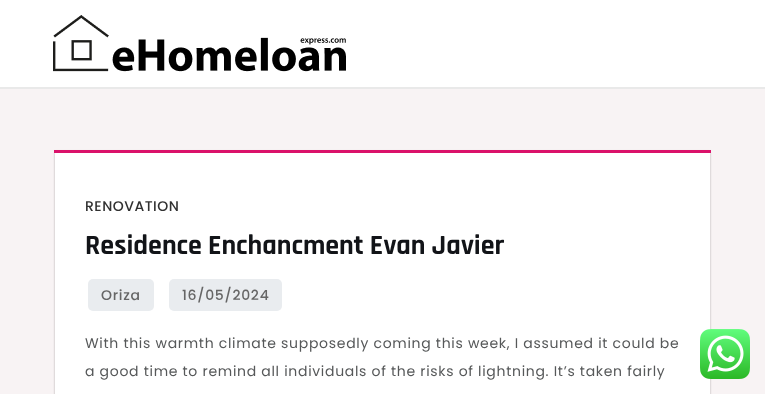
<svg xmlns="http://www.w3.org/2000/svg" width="765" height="394">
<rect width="100%" height="100%" fill="#f8f3f4"/>
<rect width="765" height="87" fill="#fff"/>
<rect y="87" width="765" height="2" fill="#e9e9e9"/>
<image x="53" y="15" width="293" height="57" href="media/1.png"/>
<rect x="55" y="153" width="655" height="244" fill="#0000002e" filter="blur(1px)"/>
<rect x="55" y="151" width="655" height="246" fill="#0000001a" filter="blur(1px)"/>
<rect x="55" y="153" width="655" height="241" fill="#fff"/>
<rect x="54" y="150" width="657" height="3" fill="#da126a"/>
<text x="85" y="211" style="font-family:Poppins;font-size:14px;font-weight:500;letter-spacing:0.5px;fill:#313131">RENOVATION</text>
<text x="85" y="254" style="font-family:Rajdhani;font-size:28px;font-weight:bold;fill:#121418">Residence Enchancment Evan Javier</text>
<rect x="88" y="279" width="66" height="32" rx="5" fill="#e9ecef"/>
<text x="101" y="300" style="font-family:Poppins;font-size:14px;font-weight:500;letter-spacing:0.7px;fill:#666">Oriza</text>
<rect x="169" y="279" width="113" height="32" rx="5" fill="#e9ecef"/>
<text x="182" y="300" style="font-family:Poppins;font-size:14px;font-weight:500;letter-spacing:0.7px;fill:#666">16/05/2024</text>
<text x="85" y="348" style="font-family:Poppins;font-size:14px;letter-spacing:0.7px;fill:#565859">With this warmth climate supposedly coming this week, I assumed it could be</text>
<text x="85" y="376" style="font-family:Poppins;font-size:14px;letter-spacing:0.7px;fill:#565859">a good time to remind all individuals of the risks of lightning. It’s taken fairly</text>
<image x="700" y="329" width="50" height="50" href="media/2.png"/>
</svg>
